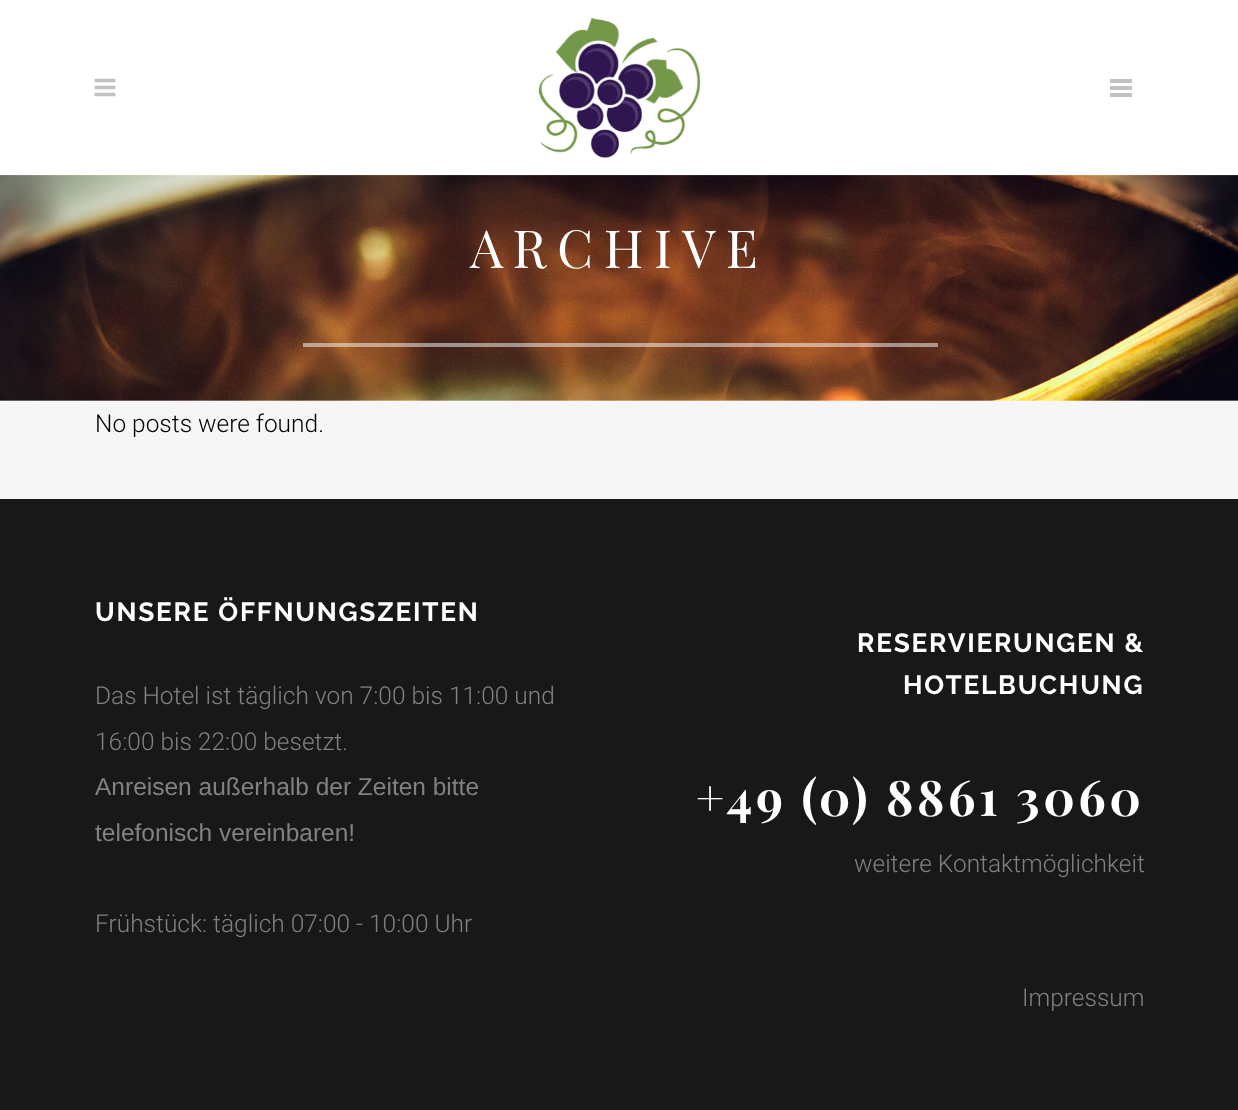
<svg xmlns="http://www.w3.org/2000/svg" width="1238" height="1110">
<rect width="100%" height="100%" fill="#f6f6f6"/>
<rect width="1238" height="175" fill="#fff"/>
<image x="94" y="78" width="22" height="19" href="media/1.png"/>
<image x="538" y="17" width="163" height="141" href="media/2.png"/>
<rect x="1110" y="86" width="22" height="4" fill="#c2c2c2"/>
<rect x="1110" y="79" width="22" height="4" fill="#c2c2c2"/>
<rect x="1110" y="93" width="22" height="4" fill="#c2c2c2"/>
<image x="0" y="175" width="1238" height="226" href="media/3.png"/>
<text x="470" y="268" style="font-family:Playfair Display;font-size:52.5px;letter-spacing:10.5px;fill:#fff">ARCHIVE</text>
<rect x="303" y="343" width="635" height="4" fill="#ffffff80"/>
<text x="95" y="432" style="font-family:Roboto;font-size:24.5px;font-weight:300;fill:#020202">No posts were found.</text>
<rect y="499" width="1238" height="611" fill="#181818"/>
<text x="95" y="621" style="font-family:Raleway;font-size:26.25px;font-weight:bold;letter-spacing:1.75px;fill:#fff">UNSERE ÖFFNUNGSZEITEN</text>
<text x="95" y="704" style="font-family:Roboto;font-size:24.5px;font-weight:300;fill:#818181">Das Hotel ist täglich von 7:00 bis 11:00 und</text>
<text x="95" y="750" style="font-family:Roboto;font-size:24.5px;font-weight:300;fill:#818181">16:00 bis 22:00 besetzt.</text>
<text x="95" y="795" style="font-family:Liberation Sans;font-size:24.5px;fill:#818181">Anreisen außerhalb der Zeiten bitte</text>
<text x="95" y="841" style="font-family:Liberation Sans;font-size:24.5px;fill:#818181">telefonisch vereinbaren!</text>
<text x="95" y="932" style="font-family:Roboto;font-size:24.5px;font-weight:300;fill:#818181">Frühstück: täglich 07:00 - 10:00 Uhr</text>
<text x="857" y="652" style="font-family:Raleway;font-size:26.25px;font-weight:bold;letter-spacing:1.75px;fill:#fff">RESERVIERUNGEN &amp;</text>
<text x="903" y="694" style="font-family:Raleway;font-size:26.25px;font-weight:bold;letter-spacing:1.75px;fill:#fff">HOTELBUCHUNG</text>
<text x="696" y="816" style="font-family:Playfair Display;font-size:49px;font-weight:bold;letter-spacing:3.5px;fill:#fff">+49 (0) 8861 3060</text>
<text x="854" y="872" style="font-family:Roboto;font-size:24.5px;font-weight:300;fill:#818181">weitere Kontaktmöglichkeit</text>
<text x="1022" y="1006" style="font-family:Roboto;font-size:24.5px;font-weight:300;fill:#818181">Impressum</text>
</svg>
